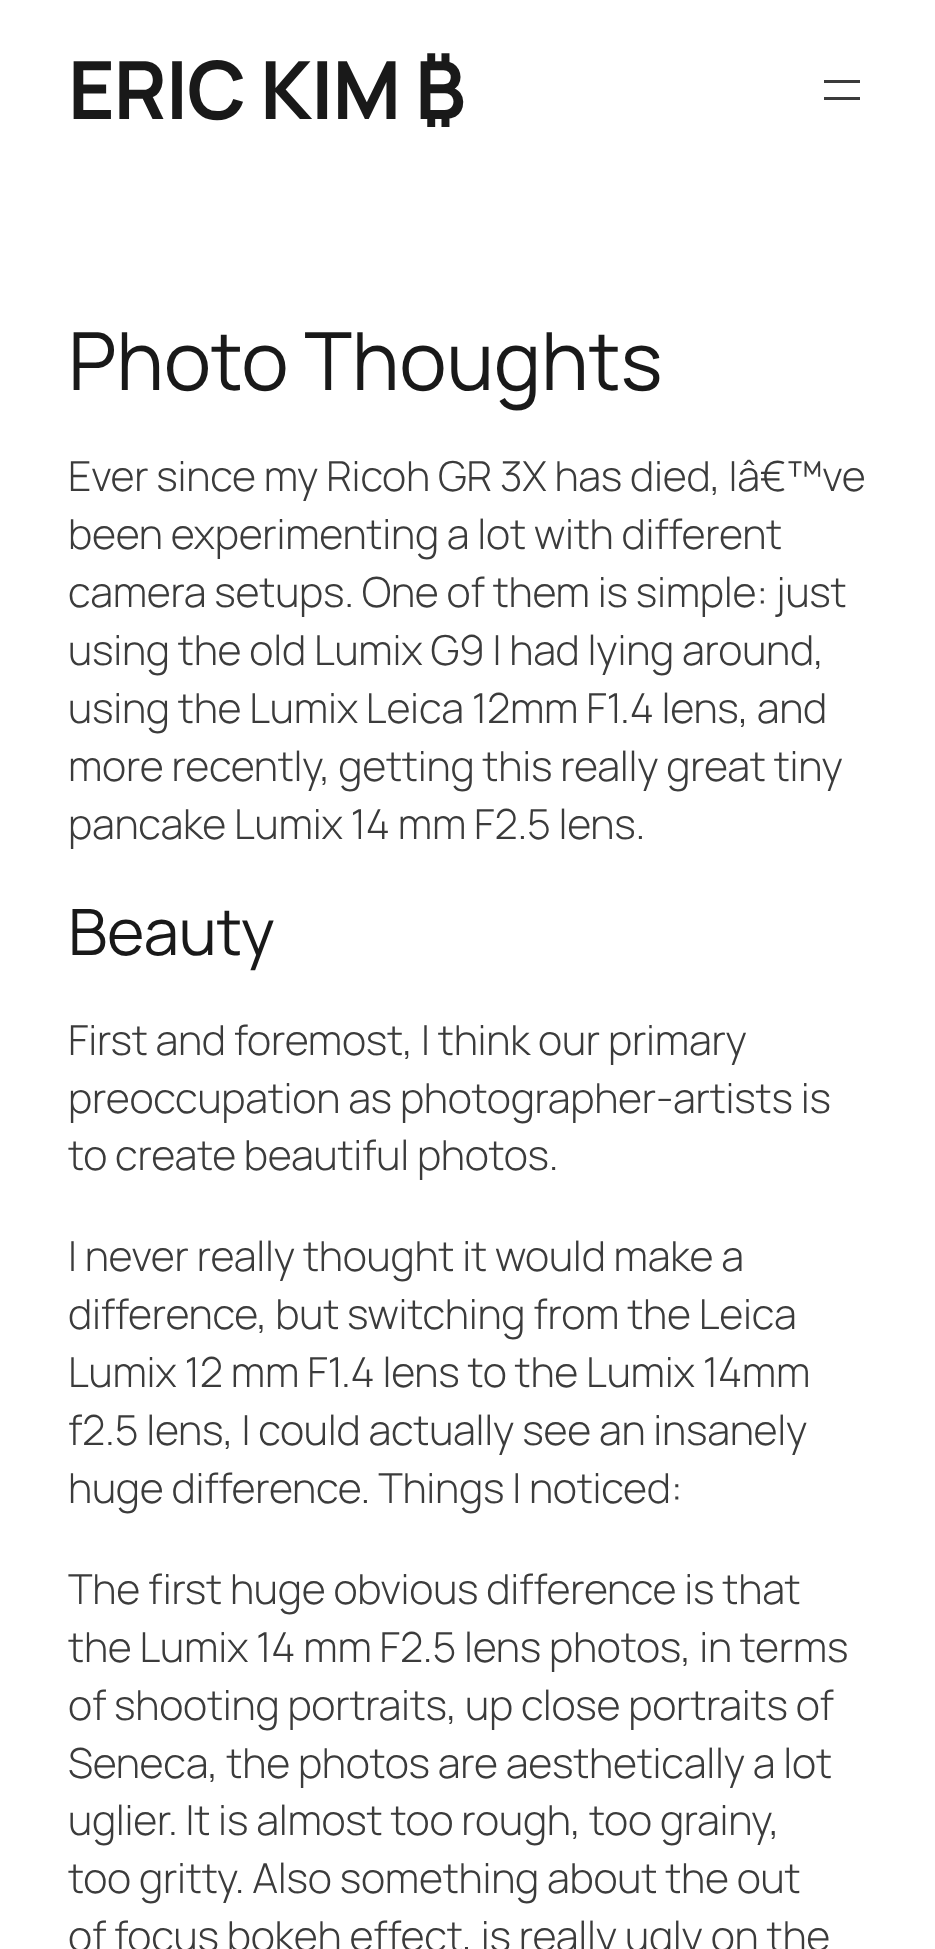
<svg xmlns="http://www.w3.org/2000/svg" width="935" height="1949">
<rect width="100%" height="100%" fill="#fff"/>
<text x="68" y="119" style="font-family:Manrope;font-size:80.25px;font-weight:bold;letter-spacing:-1.1px;fill:#191919">ERIC KIM ₿</text>
<rect x="824" y="80" width="36" height="3" fill="#3b3b3b"/>
<rect x="824" y="97" width="36" height="3" fill="#3b3b3b"/>
<text x="68" y="390" style="font-family:Manrope;font-size:80.25px;letter-spacing:-0.25px;fill:#191919">Photo Thoughts</text>
<text x="68" y="491" style="font-family:Manrope;font-size:41.4px;font-weight:300;letter-spacing:-0.25px;fill:#3b3b3b">Ever since my Ricoh GR 3X has died, Iâ€™ve</text>
<text x="68" y="549" style="font-family:Manrope;font-size:41.4px;font-weight:300;letter-spacing:-0.25px;fill:#3b3b3b">been experimenting a lot with different</text>
<text x="68" y="607" style="font-family:Manrope;font-size:41.4px;font-weight:300;letter-spacing:-0.25px;fill:#3b3b3b">camera setups. One of them is simple: just</text>
<text x="68" y="665" style="font-family:Manrope;font-size:41.4px;font-weight:300;letter-spacing:-0.25px;fill:#3b3b3b">using the old Lumix G9 I had lying around,</text>
<text x="68" y="723" style="font-family:Manrope;font-size:41.4px;font-weight:300;letter-spacing:-0.25px;fill:#3b3b3b">using the Lumix Leica 12mm F1.4 lens, and</text>
<text x="68" y="781" style="font-family:Manrope;font-size:41.4px;font-weight:300;letter-spacing:-0.25px;fill:#3b3b3b">more recently, getting this really great tiny</text>
<text x="68" y="839" style="font-family:Manrope;font-size:41.4px;font-weight:300;letter-spacing:-0.25px;fill:#3b3b3b">pancake Lumix 14 mm F2.5 lens.</text>
<text x="68" y="955" style="font-family:Manrope;font-size:64px;letter-spacing:-0.25px;fill:#191919">Beauty</text>
<text x="68" y="1055" style="font-family:Manrope;font-size:41.4px;font-weight:300;letter-spacing:-0.25px;fill:#3b3b3b">First and foremost, I think our primary</text>
<text x="68" y="1113" style="font-family:Manrope;font-size:41.4px;font-weight:300;letter-spacing:-0.25px;fill:#3b3b3b">preoccupation as photographer-artists is</text>
<text x="68" y="1170" style="font-family:Manrope;font-size:41.4px;font-weight:300;letter-spacing:-0.25px;fill:#3b3b3b">to create beautiful photos.</text>
<text x="68" y="1271" style="font-family:Manrope;font-size:41.4px;font-weight:300;letter-spacing:-0.25px;fill:#3b3b3b">I never really thought it would make a</text>
<text x="68" y="1329" style="font-family:Manrope;font-size:41.4px;font-weight:300;letter-spacing:-0.25px;fill:#3b3b3b">difference, but switching from the Leica</text>
<text x="68" y="1387" style="font-family:Manrope;font-size:41.4px;font-weight:300;letter-spacing:-0.25px;fill:#3b3b3b">Lumix 12 mm F1.4 lens to the Lumix 14mm</text>
<text x="68" y="1445" style="font-family:Manrope;font-size:41.4px;font-weight:300;letter-spacing:-0.25px;fill:#3b3b3b">f2.5 lens, I could actually see an insanely</text>
<text x="68" y="1503" style="font-family:Manrope;font-size:41.4px;font-weight:300;letter-spacing:-0.25px;fill:#3b3b3b">huge difference. Things I noticed:</text>
<text x="68" y="1604" style="font-family:Manrope;font-size:41.4px;font-weight:300;letter-spacing:-0.25px;fill:#3b3b3b">The first huge obvious difference is that</text>
<text x="68" y="1662" style="font-family:Manrope;font-size:41.4px;font-weight:300;letter-spacing:-0.25px;fill:#3b3b3b">the Lumix 14 mm F2.5 lens photos, in terms</text>
<text x="68" y="1720" style="font-family:Manrope;font-size:41.4px;font-weight:300;letter-spacing:-0.25px;fill:#3b3b3b">of shooting portraits, up close portraits of</text>
<text x="68" y="1778" style="font-family:Manrope;font-size:41.4px;font-weight:300;letter-spacing:-0.25px;fill:#3b3b3b">Seneca, the photos are aesthetically a lot</text>
<text x="68" y="1835" style="font-family:Manrope;font-size:41.4px;font-weight:300;letter-spacing:-0.25px;fill:#3b3b3b">uglier. It is almost too rough, too grainy,</text>
<text x="68" y="1893" style="font-family:Manrope;font-size:41.4px;font-weight:300;letter-spacing:-0.25px;fill:#3b3b3b">too gritty. Also something about the out</text>
<text x="68" y="1951" style="font-family:Manrope;font-size:41.4px;font-weight:300;letter-spacing:-0.25px;fill:#3b3b3b">of focus bokeh effect, is really ugly on the</text>
</svg>
